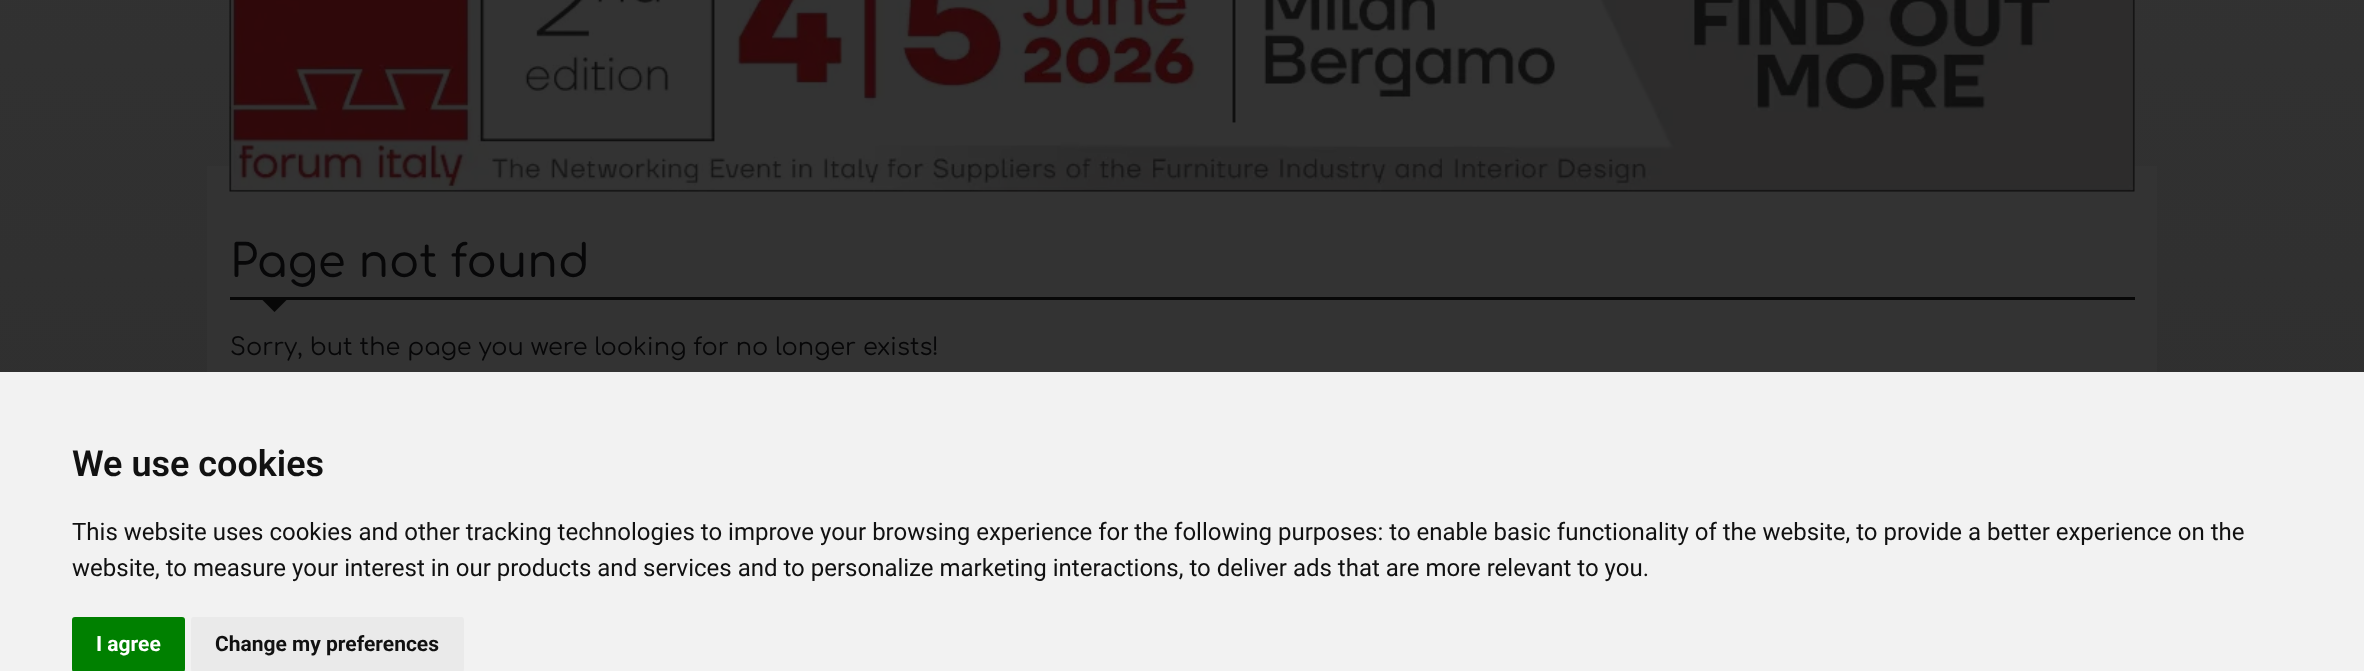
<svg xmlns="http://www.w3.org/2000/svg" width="2364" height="671">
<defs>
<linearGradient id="g1" gradientUnits="userSpaceOnUse" x1="1182" y1="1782" x2="1182" y2="-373"><stop offset="0" stop-color="#292929"/><stop offset="1" stop-color="#333"/></linearGradient>
</defs>
<rect width="100%" height="100%" fill="#fff"/>
<rect width="2364" height="372" fill="url(#g1)"/>
<rect x="207" y="166" width="1950" height="206" fill="#333"/>
<image x="229" y="0" width="1906" height="192" href="media/1.png"/>
<text x="230" y="277" style="font-family:Comfortaa;font-size:45px;font-weight:500;fill:#070708">Page not found</text>
<rect x="230" y="297" width="1905" height="3" fill="#070707"/>
<path d="M262.5 300h24l-12 12z" fill="#070707"/>
<text x="230" y="355" style="font-family:Comfortaa;font-size:24px;fill:#070708">Sorry, but the page you were looking for no longer exists!</text>
<rect y="372" width="2364" height="299" fill="#f2f2f2"/>
<text x="72" y="476" style="font-family:Roboto;font-size:36px;font-weight:600;fill:#111">We use cookies</text>
<text x="72" y="540" style="font-family:Roboto;font-size:24px;fill:#111">This website uses cookies and other tracking technologies to improve your browsing experience for the following purposes: to enable basic functionality of the website, to provide a better experience on the</text>
<text x="72" y="576" style="font-family:Roboto;font-size:24px;fill:#111">website, to measure your interest in our products and services and to personalize marketing interactions, to deliver ads that are more relevant to you.</text>
<rect x="72" y="617" width="113" height="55" rx="3" fill="#008000"/>
<text x="96" y="651" style="font-family:Roboto;font-size:21px;font-weight:bold;fill:#fff">I agree</text>
<rect x="191" y="617" width="273" height="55" rx="3" fill="#eaeaea"/>
<text x="215" y="651" style="font-family:Roboto;font-size:21px;font-weight:bold;fill:#111">Change my preferences</text>
</svg>
